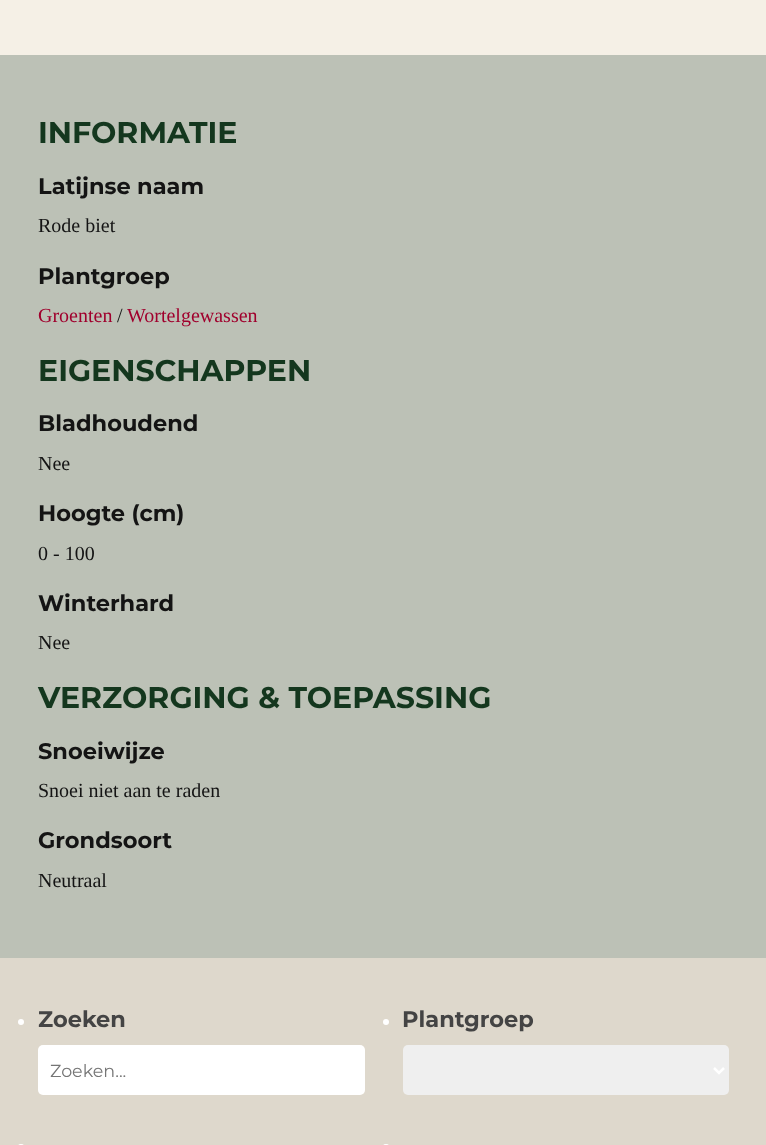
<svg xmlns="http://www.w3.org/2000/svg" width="766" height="1145">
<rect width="100%" height="100%" fill="#f5f0e6"/>
<rect y="55" width="766" height="903" fill="#bcc1b6"/>
<text x="38" y="143" style="font-family:Montserrat;font-size:30px;font-weight:bold;fill:#14371e">INFORMATIE</text>
<text x="38" y="194" style="font-family:Montserrat;font-size:22.5px;font-weight:bold;fill:#141414">Latijnse naam</text>
<text x="38" y="232" style="font-family:Liberation Serif;font-size:20px;fill:#141414">Rode biet</text>
<text x="38" y="284" style="font-family:Montserrat;font-size:22.5px;font-weight:bold;fill:#141414">Plantgroep</text>
<text x="38" y="322" style="font-family:Liberation Serif;font-size:20px;fill:#a0002d">Groenten</text>
<text x="117" y="322" style="font-family:Liberation Serif;font-size:20px;fill:#141414">/</text>
<text x="127" y="322" style="font-family:Liberation Serif;font-size:20px;fill:#a0002d">Wortelgewassen</text>
<text x="38" y="381" style="font-family:Montserrat;font-size:30px;font-weight:bold;fill:#14371e">EIGENSCHAPPEN</text>
<text x="38" y="431" style="font-family:Montserrat;font-size:22.5px;font-weight:bold;fill:#141414">Bladhoudend</text>
<text x="38" y="470" style="font-family:Liberation Serif;font-size:20px;fill:#141414">Nee</text>
<text x="38" y="521" style="font-family:Montserrat;font-size:22.5px;font-weight:bold;fill:#141414">Hoogte (cm)</text>
<text x="38" y="560" style="font-family:Liberation Serif;font-size:20px;fill:#141414">0 - 100</text>
<text x="38" y="611" style="font-family:Montserrat;font-size:22.5px;font-weight:bold;fill:#141414">Winterhard</text>
<text x="38" y="649" style="font-family:Liberation Serif;font-size:20px;fill:#141414">Nee</text>
<text x="38" y="708" style="font-family:Montserrat;font-size:30px;font-weight:bold;fill:#14371e">VERZORGING &amp; TOEPASSING</text>
<text x="38" y="759" style="font-family:Montserrat;font-size:22.5px;font-weight:bold;fill:#141414">Snoeiwijze</text>
<text x="38" y="797" style="font-family:Liberation Serif;font-size:20px;fill:#141414">Snoei niet aan te raden</text>
<text x="38" y="848" style="font-family:Montserrat;font-size:22.5px;font-weight:bold;fill:#141414">Grondsoort</text>
<text x="38" y="887" style="font-family:Liberation Serif;font-size:20px;fill:#141414">Neutraal</text>
<rect y="958" width="766" height="187" fill="#ded8cc"/>
<circle cx="21" cy="1022" r="3" fill="#fff"/>
<text x="38" y="1027" style="font-family:Montserrat;font-size:22.5px;font-weight:bold;fill:#444">Zoeken</text>
<rect x="38" y="1045" width="327" height="50" rx="5" fill="#fff"/>
<text x="50" y="1077" style="font-family:Montserrat;font-size:17.5px;fill:#757575">Zoeken...</text>
<circle cx="386" cy="1022" r="3" fill="#fff"/>
<text x="402" y="1027" style="font-family:Montserrat;font-size:22.5px;font-weight:bold;fill:#444">Plantgroep</text>
<rect x="403" y="1045" width="326" height="50" rx="5" fill="#efefef"/>
<path d="M714 1068l5 5l5-5" fill="none" stroke="#fff" stroke-width="2.5"/>
<rect x="18" y="1144" width="6" height="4" rx="3" fill="#fff"/>
<rect x="383" y="1144" width="6" height="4" rx="3" fill="#fff"/>
</svg>
